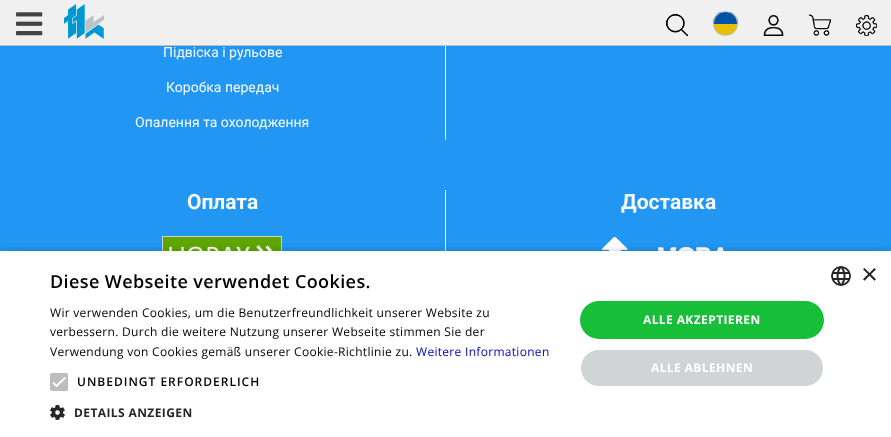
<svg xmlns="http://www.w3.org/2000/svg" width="891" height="437">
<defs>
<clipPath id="clip1"><rect x="713" y="11" width="25" height="25" rx="12.5"/></clipPath>
</defs>
<rect width="100%" height="100%" fill="#2196f3"/>
<rect width="891" height="45" fill="#f0f0f0"/>
<rect y="45" width="891" height="1" fill="#bbc2c6"/>
<image x="64" y="4" width="40" height="35" href="media/1.png"/>
<image x="666" y="14" width="22" height="22" href="media/2.png"/>
<g clip-path="url(#clip1)">
<rect x="713" y="12" width="25" height="23" fill="#e6c000"/>
<rect x="713" y="12" width="25" height="12" fill="#0052a8"/>
</g>
<circle cx="725.5" cy="23.5" r="12" fill="none" stroke="#c2c2c2"/>
<image x="763" y="15" width="21" height="21" href="media/3.png"/>
<image x="809" y="14" width="22" height="22" href="media/4.png"/>
<image x="856" y="15" width="21" height="21" href="media/5.png"/>
<image x="16" y="12" width="27" height="24" href="media/6.png"/>
<rect x="445" y="46" width="1" height="94" fill="#f8f9fa"/>
<text x="163" y="57" style="font-family:Roboto;font-size:14px;fill:#f8f9fa">Підвіска і рульове</text>
<text x="166" y="92" style="font-family:Roboto;font-size:14px;fill:#f8f9fa">Коробка передач</text>
<text x="135" y="127" style="font-family:Roboto;font-size:14px;fill:#f8f9fa">Опалення та охолодження</text>
<rect x="445" y="190" width="1" height="61" fill="#f8f9fa"/>
<text x="187" y="209" style="font-family:Roboto;font-size:21px;font-weight:bold;fill:#f8f9fa">Оплата</text>
<image x="162" y="236" width="120" height="15" href="media/7.png"/>
<text x="621" y="209" style="font-family:Roboto;font-size:21px;font-weight:bold;fill:#f8f9fa">Доставка</text>
<image x="601" y="237" width="123" height="14" href="media/8.png"/>
<rect x="1" y="253" width="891" height="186" fill="#00000059" filter="blur(4px)"/>
<rect y="251" width="891" height="186" fill="#fff"/>
<text x="50" y="288" style="font-family:Open Sans;font-size:18px;font-weight:600;letter-spacing:0.4px;fill:#000">Diese Webseite verwendet Cookies.</text>
<text x="50" y="317" style="font-family:Open Sans;font-size:12px;letter-spacing:0.3px;fill:#000">Wir verwenden Cookies, um die Benutzerfreundlichkeit unserer Website zu</text>
<text x="50" y="336" style="font-family:Open Sans;font-size:12px;letter-spacing:0.3px;fill:#000">verbessern. Durch die weitere Nutzung unserer Webseite stimmen Sie der</text>
<text x="50" y="356" style="font-family:Open Sans;font-size:12px;letter-spacing:0.3px;fill:#000">Verwendung von Cookies gemäß unserer Cookie-Richtlinie zu.</text>
<text x="416" y="356" style="font-family:Open Sans;font-size:12px;letter-spacing:0.3px;fill:#0006bf">Weitere Informationen</text>
<rect x="50" y="373" width="18" height="18" rx="2" fill="#bdbdbd"/>
<path d="M53 382.5l3.5 3.5l9-8.5" fill="none" stroke="#fff" stroke-width="1.8"/>
<text x="77" y="386" style="font-family:Open Sans;font-size:12px;font-weight:600;letter-spacing:1px;fill:#000">UNBEDINGT ERFORDERLICH</text>
<image x="50" y="405" width="15" height="15" href="media/9.png"/>
<text x="74" y="417" style="font-family:Open Sans;font-size:12px;font-weight:bold;letter-spacing:0.4px;fill:#262626">DETAILS ANZEIGEN</text>
<rect x="580" y="301" width="244" height="38" rx="19" fill="#17bf39"/>
<text x="643" y="324" style="font-family:Open Sans;font-size:12px;font-weight:bold;letter-spacing:0.4px;fill:#fff">ALLE AKZEPTIEREN</text>
<rect x="580.5" y="349.5" width="243" height="37" rx="18.5" fill="#d0d4d4" stroke="#fff"/>
<text x="651" y="372" style="font-family:Open Sans;font-size:12px;font-weight:bold;letter-spacing:0.4px;fill:#fff">ALLE ABLEHNEN</text>
<image x="831" y="266" width="20" height="20" href="media/10.png"/>
<text x="861" y="284" style="font-family:Liberation Sans;font-size:29px;fill:#262626">×</text>
</svg>
